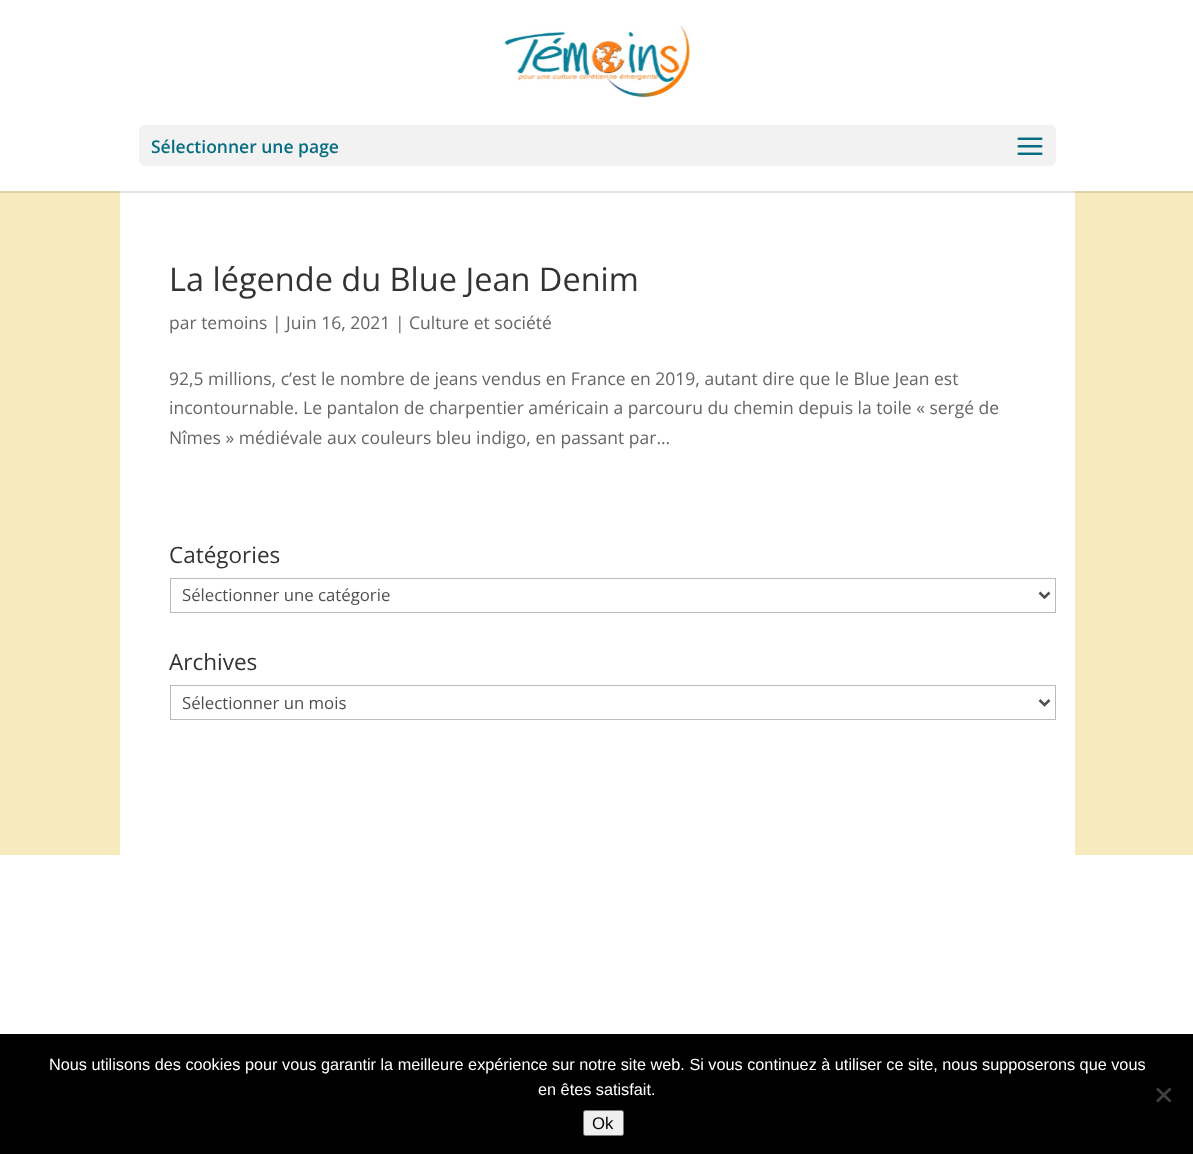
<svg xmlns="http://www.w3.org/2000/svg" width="1193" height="1154">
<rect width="100%" height="100%" fill="#fff"/>
<rect y="191" width="1193" height="664" fill="#f7ebbe"/>
<rect x="120" y="191" width="955" height="664" fill="#fff"/>
<path d="M0 191v2h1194v-192v190z" fill="#0000001a"/>
<image x="504" y="25" width="186" height="73" href="media/1.png"/>
<rect x="139" y="125" width="917" height="41" rx="6" fill="#f2f2f2"/>
<text x="151" y="153" style="font-family:Open Sans;font-size:17.5px;font-weight:600;fill:#076d82">Sélectionner une page</text>
<image x="1017" y="137" width="26" height="18" href="media/2.png"/>
<text x="169" y="291" style="font-family:Open Sans;font-size:32.5px;fill:#333">La légende du Blue Jean Denim</text>
<text x="169" y="329" style="font-family:Open Sans;font-size:17.5px;fill:#666">par temoins | Juin 16, 2021 | Culture et société</text>
<text x="169" y="385" style="font-family:Open Sans;font-size:17.5px;fill:#666">92,5 millions, c’est le nombre de jeans vendus en France en 2019, autant dire que le Blue Jean est</text>
<text x="169" y="414" style="font-family:Open Sans;font-size:17.5px;fill:#666">incontournable. Le pantalon de charpentier américain a parcouru du chemin depuis la toile « sergé de</text>
<text x="169" y="444" style="font-family:Open Sans;font-size:17.5px;fill:#666">Nîmes » médiévale aux couleurs bleu indigo, en passant par...</text>
<text x="169" y="563" style="font-family:Open Sans;font-size:22.5px;fill:#333">Catégories</text>
<rect x="170.5" y="578.5" width="885" height="34" fill="none" stroke="#bbb"/>
<path d="M1039.5 592.5l5 5l5-5" fill="none" stroke="#4e4e4e" stroke-width="2.5"/>
<text x="182" y="601" style="font-family:Open Sans;font-size:16.75px;fill:#4e4e4e">Sélectionner une catégorie</text>
<text x="169" y="670" style="font-family:Open Sans;font-size:22.5px;fill:#333">Archives</text>
<rect x="170.5" y="685.5" width="885" height="34" fill="none" stroke="#bbb"/>
<path d="M1039.5 700l5 5l5-5" fill="none" stroke="#4e4e4e" stroke-width="2.5"/>
<text x="182" y="709" style="font-family:Open Sans;font-size:16.75px;fill:#4e4e4e">Sélectionner un mois</text>
<rect y="1034" width="1193" height="120" fill="#000"/>
<text x="49" y="1070" style="font-family:Liberation Sans;font-size:16.25px;fill:#fff">Nous utilisons des cookies pour vous garantir la meilleure expérience sur notre site web. Si vous continuez à utiliser ce site, nous supposerons que vous</text>
<text x="538" y="1095" style="font-family:Liberation Sans;font-size:16.25px;fill:#fff">en êtes satisfait.</text>
<path d="M1169.5 1087.5l2 2l-13.5 13l-2-2z" fill="#404040"/>
<path d="M1156 1089.5l2-2l13.5 13l-2 2z" fill="#404040"/>
<rect x="583.5" y="1110.5" width="40" height="25" rx="2" fill="#efefef" stroke="#767676"/>
<text x="592" y="1129" style="font-family:Liberation Sans;font-size:16.75px;fill:#000">Ok</text>
</svg>
